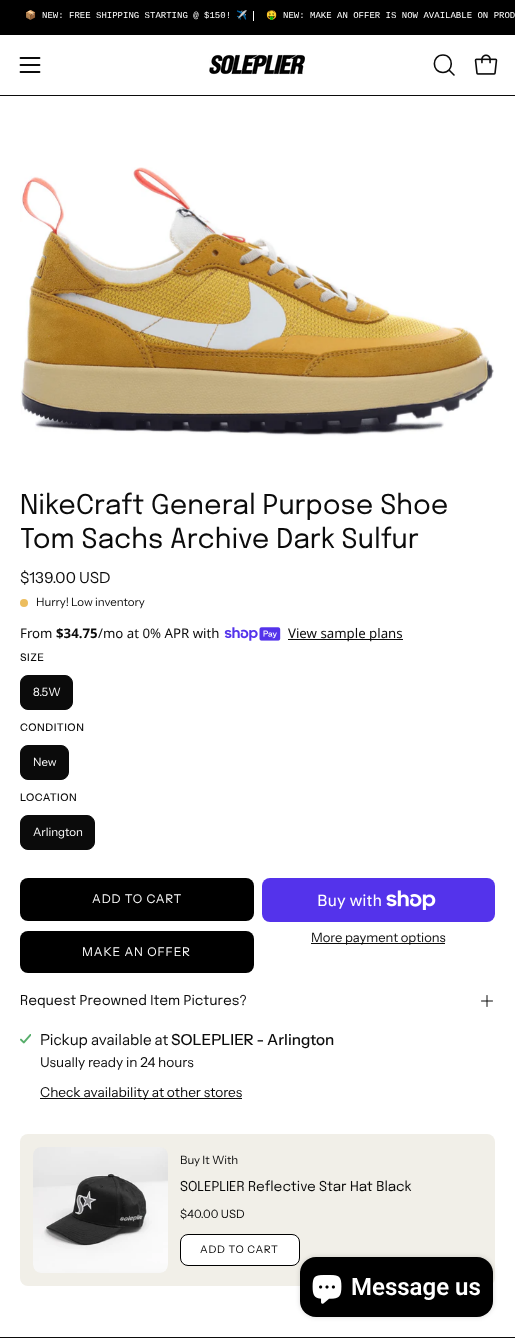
<svg xmlns="http://www.w3.org/2000/svg" width="515" height="1338">
<rect width="100%" height="100%" fill="#fff"/>
<rect width="515" height="35" fill="#000"/>
<text x="25" y="18" style="font-family:Noto Color Emoji;font-size:9px;fill:#fff">📦</text>
<text x="42" y="18" style="font-family:Liberation Mono;font-size:9px;fill:#fff">NEW: FREE SHIPPING STARTING @ $150!</text>
<text x="236" y="18" style="font-family:Noto Color Emoji;font-size:9px;fill:#fff">✈️</text>
<text x="266" y="18" style="font-family:Noto Color Emoji;font-size:9px;fill:#fff">🤑</text>
<rect x="253" y="11" width="1" height="10" fill="#fff"/>
<text x="283" y="18" style="font-family:Liberation Mono;font-size:9px;fill:#fff">NEW: MAKE AN OFFER IS NOW AVAILABLE ON PROD</text>
<path d="M20.5 65h19m-19-7h19m-19 14h19" fill="none" stroke="#0b0b0b" stroke-width="1.8" stroke-linecap="round" stroke-linejoin="round"/>
<image x="209" y="54" width="96" height="21" href="media/1.png"/>
<path d="M443 72.5c11 0 11-17.5 0-17.5c-11.5 0-11.5 17.5 0 17.5zm6-2.5l5 5" fill="none" stroke="#0b0b0b" stroke-width="1.6" stroke-linecap="round" stroke-linejoin="round"/>
<image x="474" y="54" width="24" height="21" href="media/2.png"/>
<rect y="95" width="515" height="1" fill="#0b0b0b"/>
<image x="20" y="167" width="474" height="269" href="media/3.png"/>
<text x="20" y="514" style="font-family:Epilogue;font-size:27.25px;fill:#0b0b0b">NikeCraft General Purpose Shoe</text>
<text x="20" y="548" style="font-family:Epilogue;font-size:27.25px;fill:#0b0b0b">Tom Sachs Archive Dark Sulfur</text>
<text x="20" y="583" style="font-family:Instrument Sans;font-size:15.25px;fill:#0b0b0b">$139.00 USD</text>
<circle cx="24" cy="603" r="4" fill="#ecbd5e"/>
<text x="36" y="606" style="font-family:Instrument Sans;font-size:11.5px;fill:#0b0b0b">Hurry! Low inventory</text>
<text x="20" y="638" style="font-family:Noto Sans;font-size:13.25px;fill:#0b0b0b">From</text>
<text x="56" y="638" style="font-family:Noto Sans;font-size:13.25px;font-weight:bold;fill:#0b0b0b">$34.75</text>
<text x="98" y="638" style="font-family:Noto Sans;font-size:13.25px;fill:#0b0b0b">/mo at 0% APR with</text>
<image x="224" y="627" width="57" height="14" href="media/4.png"/>
<rect x="288" y="639" width="115" height="1" fill="#0b0b0b"/>
<text x="288" y="638" style="font-family:Noto Sans;font-size:13.25px;fill:#0b0b0b">View sample plans</text>
<text x="20" y="661" style="font-family:Instrument Sans;font-size:10.5px;font-weight:500;letter-spacing:0.5px;fill:#0b0b0b">SIZE</text>
<rect x="20.5" y="675.5" width="52" height="34" rx="7.5" fill="#0b0b0b" stroke="#0b0b0b"/>
<text x="33" y="696" style="font-family:Instrument Sans;font-size:11.5px;fill:#fff">8.5W</text>
<text x="20" y="731" style="font-family:Instrument Sans;font-size:10.5px;font-weight:500;letter-spacing:0.5px;fill:#0b0b0b">CONDITION</text>
<rect x="20.5" y="745.5" width="48" height="34" rx="7.5" fill="#0b0b0b" stroke="#0b0b0b"/>
<text x="33" y="766" style="font-family:Instrument Sans;font-size:11.5px;fill:#fff">New</text>
<text x="20" y="801" style="font-family:Instrument Sans;font-size:10.5px;font-weight:500;letter-spacing:0.5px;fill:#0b0b0b">LOCATION</text>
<rect x="20.5" y="815.5" width="74" height="34" rx="7.5" fill="#0b0b0b" stroke="#0b0b0b"/>
<text x="33" y="836" style="font-family:Instrument Sans;font-size:11.5px;fill:#fff">Arlington</text>
<rect x="20" y="878" width="234" height="43" rx="8" fill="#000"/>
<text x="92" y="903" style="font-family:Instrument Sans;font-size:12px;letter-spacing:0.9px;fill:#fff">ADD TO CART</text>
<rect x="20" y="931" width="234" height="42" rx="8" fill="#000"/>
<text x="82" y="956" style="font-family:Instrument Sans;font-size:12px;letter-spacing:0.9px;fill:#fff">MAKE AN OFFER</text>
<rect x="262" y="878" width="233" height="44" rx="8" fill="#5433eb"/>
<text x="317" y="906" style="font-family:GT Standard;font-size:16px;fill:#fff">Buy with</text>
<image x="386" y="890" width="50" height="20" href="media/5.png"/>
<rect x="311" y="943" width="134" height="1" fill="#0b0b0b"/>
<text x="311" y="942" style="font-family:Instrument Sans;font-size:13px;fill:#0b0b0b">More payment options</text>
<text x="20" y="1005" style="font-family:Epilogue;font-size:13.7px;fill:#0b0b0b">Request Preowned Item Pictures?</text>
<path d="M481.5 1001h11m-5.5-5.5v11" fill="none" stroke="#0b0b0b" stroke-linecap="round" stroke-linejoin="round"/>
<image x="20" y="1034" width="11" height="10" href="media/6.png"/>
<text x="40" y="1045" style="font-family:Instrument Sans;font-size:15.25px;fill:#0b0b0b">Pickup available at</text>
<text x="171" y="1045" style="font-family:Instrument Sans;font-size:15.25px;font-weight:500;fill:#0b0b0b">SOLEPLIER - Arlington</text>
<text x="40" y="1067" style="font-family:Instrument Sans;font-size:13.7px;fill:#0b0b0b">Usually ready in 24 hours</text>
<rect x="40" y="1098" width="202" height="1" fill="#0b0b0b"/>
<text x="40" y="1097" style="font-family:Instrument Sans;font-size:13.7px;fill:#0b0b0b">Check availability at other stores</text>
<rect x="20" y="1134" width="475" height="152" rx="8" fill="#f1efe8"/>
<image x="33" y="1147" width="135" height="126" href="media/7.png"/>
<text x="180" y="1164" style="font-family:Instrument Sans;font-size:11.5px;fill:#0b0b0b">Buy It With</text>
<text x="180" y="1191" style="font-family:Epilogue;font-size:13.6px;fill:#0b0b0b">SOLEPLIER Reflective Star Hat Black</text>
<text x="180" y="1218" style="font-family:Instrument Sans;font-size:11.5px;fill:#0b0b0b">$40.00 USD</text>
<rect x="180.5" y="1234.5" width="119" height="31" rx="7.5" fill="#fff" stroke="#000"/>
<text x="200" y="1253" style="font-family:Instrument Sans;font-size:10.5px;letter-spacing:0.75px;fill:#000">ADD TO CART</text>
<rect y="1337" width="515" height="1" fill="#0b0b0b"/>
<rect x="300" y="1257" width="193" height="60" rx="16" fill="#00000026" filter="blur(2.5px)"/>
<rect x="300" y="1257" width="193" height="60" rx="16" fill="#000"/>
<image x="312" y="1275" width="30" height="29" href="media/8.png"/>
<text x="351" y="1295" style="font-family:Roboto;font-size:24px;font-weight:600;fill:#fff">Message us</text>
</svg>
